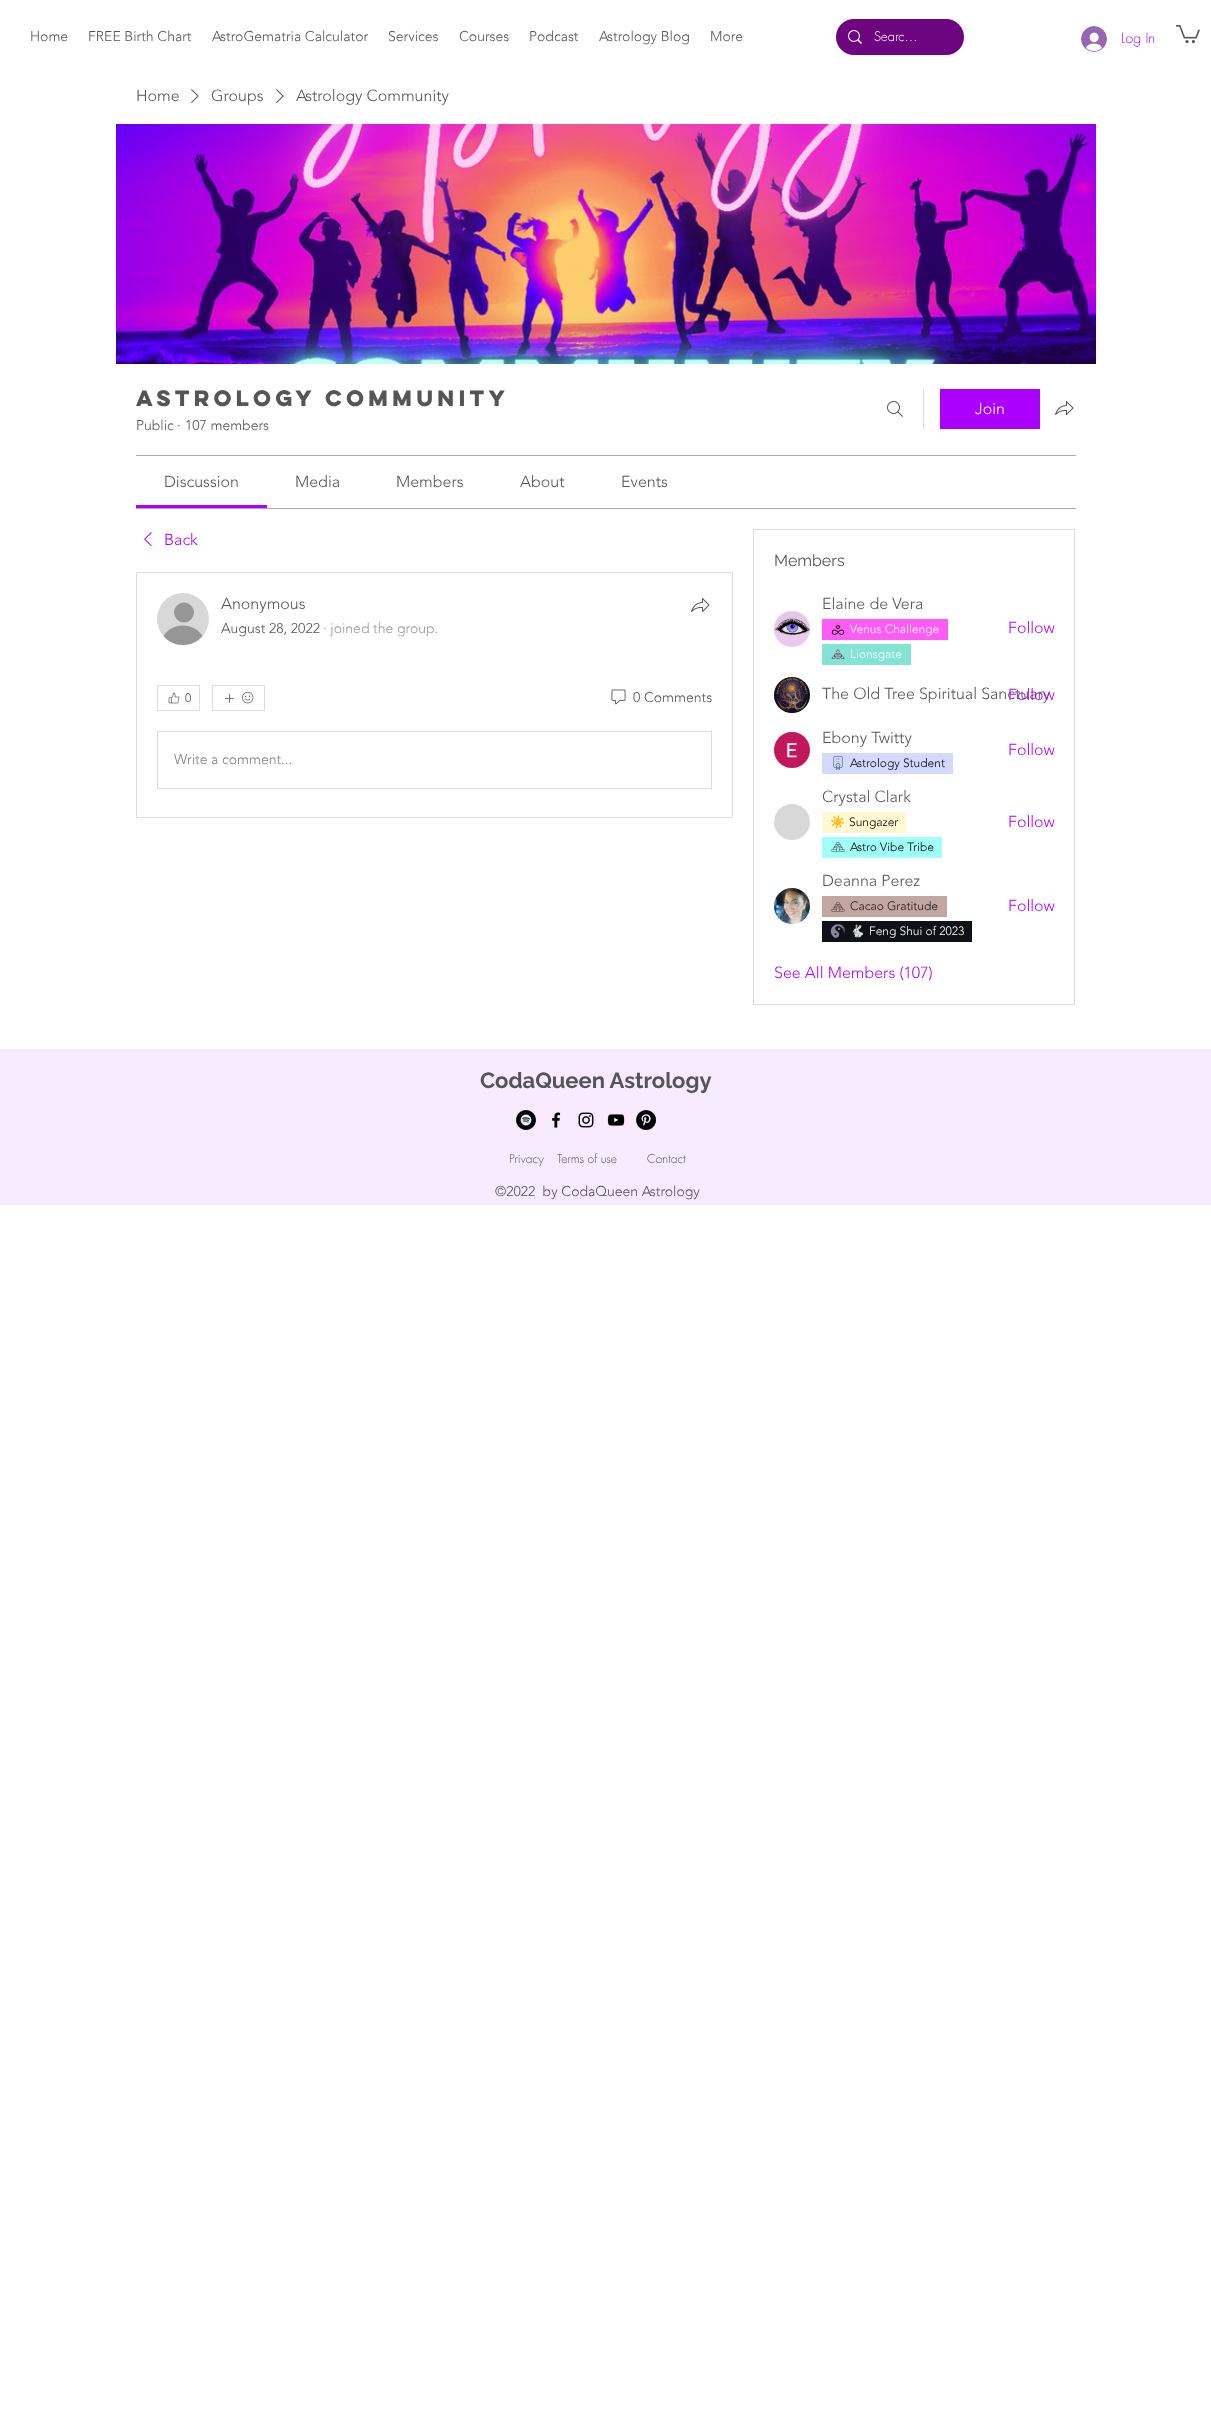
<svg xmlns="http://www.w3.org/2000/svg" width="1211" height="2413">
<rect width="100%" height="100%" fill="#fff"/>
<text x="30" y="41" style="font-family:'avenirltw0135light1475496';font-size:14px;font-weight:300;fill:#555">Home</text>
<text x="88" y="41" style="font-family:'avenirltw0135light1475496';font-size:14px;font-weight:300;fill:#555">FREE Birth Chart</text>
<text x="212" y="41" style="font-family:'avenirltw0135light1475496';font-size:14px;font-weight:300;fill:#555">AstroGematria Calculator</text>
<text x="388" y="41" style="font-family:'avenirltw0135light1475496';font-size:14px;font-weight:300;fill:#555">Services</text>
<text x="459" y="41" style="font-family:'avenirltw0135light1475496';font-size:14px;font-weight:300;fill:#555">Courses</text>
<text x="529" y="41" style="font-family:'avenirltw0135light1475496';font-size:14px;font-weight:300;fill:#555">Podcast</text>
<text x="599" y="41" style="font-family:'avenirltw0135light1475496';font-size:14px;font-weight:300;fill:#555">Astrology Blog</text>
<text x="710" y="41" style="font-family:'avenirltw0135light1475496';font-size:14px;font-weight:300;fill:#555">More</text>
<rect x="836" y="19" width="128" height="36" rx="18" fill="#6d0580"/>
<image x="848" y="30" width="14" height="14" href="media/1.png"/>
<text x="874" y="41" style="font-family:futura;font-size:13px;font-weight:300;fill:#fff">Searc…</text>
<image x="1081" y="26" width="26" height="26" href="media/2.png"/>
<text x="1121" y="43" style="font-family:futura;font-size:14px;font-weight:300;fill:#ac00ff">Log In</text>
<image x="1176" y="25" width="24" height="19" href="media/3.png"/>
<text x="136" y="101" style="font-family:'avenirltw0135light1475496';font-size:16px;font-weight:300;fill:#555">Home</text>
<image x="191" y="89" width="8" height="14" href="media/4.png"/>
<text x="211" y="101" style="font-family:'avenirltw0135light1475496';font-size:16px;font-weight:300;fill:#555">Groups</text>
<image x="276" y="89" width="8" height="14" href="media/4.png"/>
<text x="296" y="101" style="font-family:'avenirltw0135light1475496';font-size:16px;font-weight:300;fill:#555">Astrology Community</text>
<image x="116" y="124" width="980" height="240" href="media/5.png"/>
<text x="136" y="406" style="font-family:'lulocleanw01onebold';font-size:20px;font-weight:bold;fill:#555">Astrology Community</text>
<text x="136" y="430" style="font-family:'avenirltw0135light1475496';font-size:14px;font-weight:300;fill:#555">Public</text>
<text x="177" y="430" style="font-family:'avenirltw0135light1475496';font-size:14px;font-weight:300;fill:#555">·</text>
<text x="185" y="430" style="font-family:'avenirltw0135light1475496';font-size:14px;font-weight:300;fill:#555">107 members</text>
<image x="887" y="401" width="16" height="16" href="media/6.png"/>
<rect x="923" y="389" width="1" height="40" fill="#ddd"/>
<rect x="940" y="389" width="100" height="40" fill="#ac00ff"/>
<text x="975" y="414" style="font-family:'avenirltw0135light1475496';font-size:16px;font-weight:300;fill:#fff">Join</text>
<image x="1055" y="401" width="19" height="14" href="media/7.png"/>
<rect x="136" y="455" width="940" height="1" fill="#aaa"/>
<rect x="136" y="508" width="940" height="1" fill="#aaa"/>
<rect x="136" y="505" width="131" height="3" fill="#ac00ff"/>
<text x="164" y="487" style="font-family:'avenirltw0135light1475496';font-size:16px;font-weight:300;fill:#555">Discussion</text>
<text x="295" y="487" style="font-family:'avenirltw0135light1475496';font-size:16px;font-weight:300;fill:#555">Media</text>
<text x="396" y="487" style="font-family:'avenirltw0135light1475496';font-size:16px;font-weight:300;fill:#555">Members</text>
<text x="520" y="487" style="font-family:'avenirltw0135light1475496';font-size:16px;font-weight:300;fill:#555">About</text>
<text x="621" y="487" style="font-family:'avenirltw0135light1475496';font-size:16px;font-weight:300;fill:#555">Events</text>
<image x="144" y="532" width="8" height="14" href="media/8.png"/>
<text x="164" y="545" style="font-family:'avenirltw0135light1475496';font-size:16px;font-weight:300;fill:#ac00ff">Back</text>
<rect x="136.5" y="572.5" width="596" height="245" fill="none" stroke="#ddd"/>
<circle cx="183" cy="619" r="26" fill="#d8d8d8"/>
<circle cx="184" cy="612.5" r="10" fill="#969696"/>
<path d="M202.5 636c-10 12-29 12-39 0c8.5-14 30.5-14 39 0z" fill="#969696"/>
<text x="221" y="609" style="font-family:'avenirltw0135light1475496';font-size:16px;font-weight:300;fill:#555">Anonymous</text>
<text x="221" y="633" style="font-family:'avenirltw0135light1475496';font-size:14px;font-weight:300;fill:#555">August 28, 2022</text>
<text x="323" y="633" style="font-family:'avenirltw0135light1475496';font-size:14px;font-weight:300;fill:#999">· joined the group.</text>
<image x="691" y="598" width="19" height="14" href="media/7.png"/>
<rect x="157.5" y="685.5" width="42" height="25" fill="none" stroke="#ddd"/>
<image x="168" y="692" width="12" height="12" href="media/9.png"/>
<text x="185" y="702" style="font-family:'avenirltw0135light1475496';font-size:12px;font-weight:300;fill:#555">0</text>
<rect x="212.5" y="685.5" width="52" height="25" fill="none" stroke="#ddd"/>
<image x="225" y="694" width="9" height="9" href="media/10.png"/>
<image x="242" y="692" width="12" height="12" href="media/11.png"/>
<image x="611" y="689" width="15" height="16" href="media/12.png"/>
<text x="633" y="702" style="font-family:'avenirltw0135light1475496';font-size:14px;font-weight:300;fill:#555">0 Comments</text>
<rect x="157.5" y="731.5" width="554" height="57" fill="none" stroke="#ddd"/>
<text x="174" y="764" style="font-family:'avenirltw0135light1475496';font-size:14px;font-weight:300;fill:#808080">Write a comment...</text>
<rect x="753.5" y="529.5" width="321" height="475" fill="none" stroke="#ddd"/>
<text x="774" y="566" style="font-family:Raleway;font-size:16px;fill:#555">Members</text>
<image x="774" y="611" width="36" height="36" href="media/13.png"/>
<text x="822" y="609" style="font-family:'avenirltw0135light1475496';font-size:16px;font-weight:300;fill:#555">Elaine de Vera</text>
<rect x="822" y="619" width="126" height="21" fill="#ff5cf7"/>
<image x="831" y="623" width="14" height="12" href="media/14.png"/>
<text x="850" y="633" style="font-family:'avenirltw0135light1475496';font-size:12px;font-weight:300;fill:#fff">Venus Challenge</text>
<rect x="822" y="644" width="89" height="21" fill="#83e4d4"/>
<image x="831" y="649" width="14" height="10" href="media/15.png"/>
<text x="850" y="658" style="font-family:'avenirltw0135light1475496';font-size:12px;font-weight:300;fill:#fff">Lionsgate</text>
<text x="1008" y="633" style="font-family:'avenirltw0135light1475496';font-size:16px;font-weight:300;fill:#ac00ff">Follow</text>
<image x="774" y="677" width="36" height="36" href="media/16.png"/>
<text x="822" y="699" style="font-family:'avenirltw0135light1475496';font-size:16px;font-weight:300;fill:#555">The Old Tree Spiritual Sanctuary</text>
<text x="1008" y="700" style="font-family:'avenirltw0135light1475496';font-size:16px;font-weight:300;fill:#ac00ff">Follow</text>
<image x="774" y="732" width="36" height="36" href="media/17.png"/>
<text x="822" y="743" style="font-family:'avenirltw0135light1475496';font-size:16px;font-weight:300;fill:#555">Ebony Twitty</text>
<rect x="822" y="753" width="131" height="21" fill="#d4daff"/>
<image x="833" y="756" width="10" height="14" href="media/18.png"/>
<text x="850" y="767" style="font-family:'avenirltw0135light1475496';font-size:12px;font-weight:300;fill:#000">Astrology Student</text>
<text x="1008" y="755" style="font-family:'avenirltw0135light1475496';font-size:16px;font-weight:300;fill:#ac00ff">Follow</text>
<circle cx="792" cy="822" r="18" fill="#d8d8d8"/>
<text x="822" y="802" style="font-family:'avenirltw0135light1475496';font-size:16px;font-weight:300;fill:#555">Crystal Clark</text>
<rect x="822" y="812" width="84" height="21" fill="#fff9d1"/>
<text x="830" y="826" style="font-family:Noto Color Emoji;font-size:12px;fill:#000">☀️</text>
<text x="849" y="826" style="font-family:'avenirltw0135light1475496';font-size:12px;font-weight:300;fill:#000">Sungazer</text>
<rect x="822" y="837" width="120" height="21" fill="#a0fff8"/>
<image x="831" y="842" width="14" height="10" href="media/19.png"/>
<text x="850" y="851" style="font-family:'avenirltw0135light1475496';font-size:12px;font-weight:300;fill:#000">Astro Vibe Tribe</text>
<text x="1008" y="827" style="font-family:'avenirltw0135light1475496';font-size:16px;font-weight:300;fill:#ac00ff">Follow</text>
<image x="774" y="888" width="36" height="36" href="media/20.png"/>
<text x="822" y="886" style="font-family:'avenirltw0135light1475496';font-size:16px;font-weight:300;fill:#555">Deanna Perez</text>
<rect x="822" y="896" width="125" height="21" fill="#c4a6a1"/>
<image x="831" y="902" width="14" height="10" href="media/21.png"/>
<text x="850" y="910" style="font-family:'avenirltw0135light1475496';font-size:12px;font-weight:300;fill:#0e1216">Cacao Gratitude</text>
<rect x="822" y="921" width="150" height="21" fill="#0e1216"/>
<image x="830" y="924" width="16" height="14" href="media/22.png"/>
<text x="850" y="935" style="font-family:Noto Color Emoji;font-size:12px;fill:#fff">🐇</text>
<text x="869" y="935" style="font-family:'avenirltw0135light1475496';font-size:12px;font-weight:300;fill:#fff">Feng Shui of 2023</text>
<text x="1008" y="911" style="font-family:'avenirltw0135light1475496';font-size:16px;font-weight:300;fill:#ac00ff">Follow</text>
<text x="774" y="978" style="font-family:'avenirltw0135light1475496';font-size:16px;font-weight:300;fill:#ac00ff">See All Members (107)</text>
<rect y="1050" width="1211" height="155" fill="#f8ebff"/>
<rect y="1049" width="1211" height="1" fill="#f9eeff"/>
<text x="480" y="1088" style="font-family:Raleway;font-size:22px;font-weight:bold;fill:#555">CodaQueen Astrology</text>
<image x="516" y="1110" width="20" height="20" href="media/23.png"/>
<image x="552" y="1112" width="9" height="16" href="media/24.png"/>
<image x="578" y="1112" width="16" height="16" href="media/25.png"/>
<image x="607" y="1114" width="18" height="12" href="media/26.png"/>
<image x="636" y="1110" width="20" height="20" href="media/27.png"/>
<text x="509" y="1163" style="font-family:futura;font-size:12px;font-weight:300;fill:#555">Privacy</text>
<text x="557" y="1163" style="font-family:futura;font-size:12px;font-weight:300;fill:#555">Terms of use</text>
<text x="647" y="1163" style="font-family:futura;font-size:12px;font-weight:300;fill:#555">Contact</text>
<text x="495" y="1196" style="font-family:'avenirltw0135light1475496';font-size:14px;font-weight:300;fill:#555" xml:space="preserve">©2022  by CodaQueen Astrology</text>
</svg>
